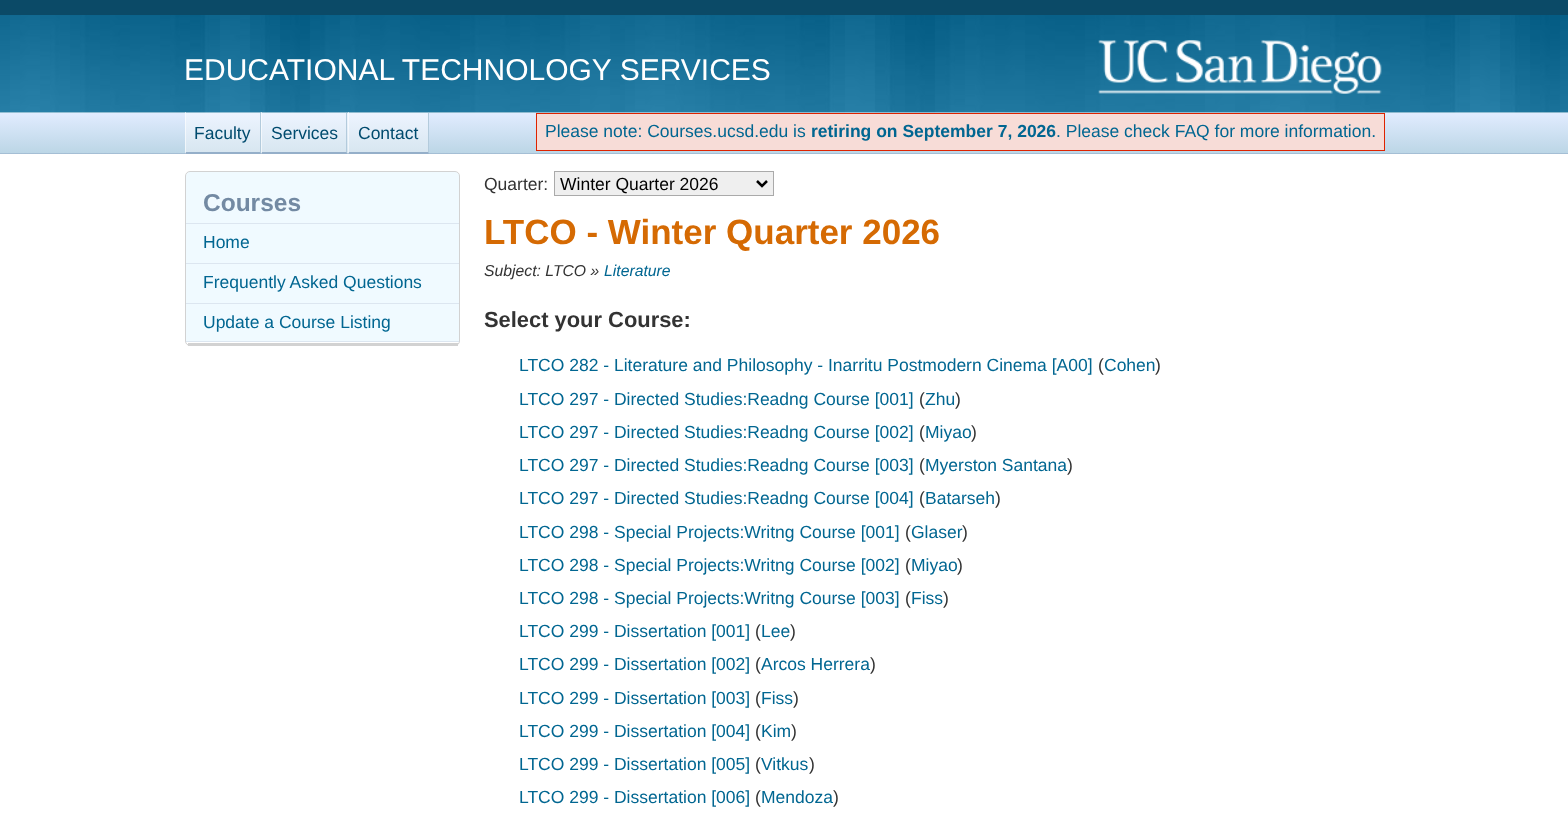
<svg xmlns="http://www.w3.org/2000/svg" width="1568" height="829">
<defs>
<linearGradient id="g1" gradientUnits="userSpaceOnUse" x1="784" y1="112" x2="784" y2="154"><stop offset="0" stop-color="#f0faff"/><stop offset="0.03" stop-color="#e1ecff"/><stop offset="0.97" stop-color="#bcd6e6"/><stop offset="1" stop-color="#95afc9"/></linearGradient>
<linearGradient id="g2" gradientUnits="userSpaceOnUse" x1="784" y1="112" x2="784" y2="154"><stop offset="0" stop-color="#f6fcff"/><stop offset="0.03" stop-color="#edf4ff"/><stop offset="0.97" stop-color="#d7e6f0"/><stop offset="1" stop-color="#bfcfdf"/></linearGradient>
</defs>
<rect width="100%" height="100%" fill="#fff"/>
<rect width="1568" height="15" fill="#0b4a67"/>
<image x="0" y="15" width="1568" height="98" href="media/1.png"/>
<text x="184" y="80" style="font-family:Liberation Sans;font-size:30px;fill:#fff">EDUCATIONAL TECHNOLOGY SERVICES</text>
<image x="1098" y="40" width="284" height="54" href="media/2.png"/>
<rect y="113" width="1568" height="41" fill="url(#g1)"/>
<rect x="348" y="113" width="80" height="41" fill="url(#g2)"/>
<rect x="261" y="113" width="87" height="41" fill="url(#g2)"/>
<rect x="185" y="113" width="75" height="41" fill="url(#g2)"/>
<rect x="260" y="113" width="1" height="41" fill="#b3cbdc"/>
<path d="M261 154h-76l1-2h74z" fill="#95afc9"/>
<path d="M185 154v-42h1v40z" fill="#ffffff99"/>
<text x="194" y="139" style="font-family:Liberation Sans;font-size:17.5px;fill:#004b6e">Faculty</text>
<rect x="346" y="113" width="1" height="41" fill="#b3cbdc"/>
<path d="M348 154h-87l1-2h84z" fill="#95afc9"/>
<path d="M261 154v-42h1v40z" fill="#ffffff99"/>
<text x="271" y="139" style="font-family:Liberation Sans;font-size:17.5px;fill:#004b6e">Services</text>
<rect x="428" y="113" width="1" height="41" fill="#b3cbdc"/>
<path d="M429 154h-81l1-2h79z" fill="#95afc9"/>
<path d="M348 154v-42h1v40z" fill="#ffffff99"/>
<text x="358" y="139" style="font-family:Liberation Sans;font-size:17.5px;fill:#004b6e">Contact</text>
<rect x="536.5" y="113.5" width="848" height="37" fill="#f7dcd7" stroke="#de2300"/>
<text x="545" y="137" style="font-family:Liberation Sans;font-size:17.5px;fill:#016691">Please note: Courses.ucsd.edu is</text>
<text x="811" y="137" style="font-family:Liberation Sans;font-size:17.5px;font-weight:bold;fill:#016691">retiring on September 7, 2026</text>
<text x="1056" y="137" style="font-family:Liberation Sans;font-size:17.5px;fill:#016691">. Please check FAQ for more information.</text>
<path d="M189 172h267c1 0 3 2 3 4v166h-3h-267h-3v-166c0-2 2-4 3-4z" fill="#f0faff"/>
<rect x="185.5" y="171.5" width="274" height="174" rx="4.5" fill="none" stroke="#d2d2d2"/>
<rect x="188" y="343" width="270" height="3" fill="#d2d2d2"/>
<text x="203" y="211" style="font-family:Liberation Sans;font-size:24.5px;font-weight:bold;fill:#738aa3">Courses</text>
<rect x="186" y="341" width="273" height="1" fill="#dce6f0"/>
<rect x="186" y="223" width="273" height="1" fill="#dce6f0"/>
<text x="203" y="248" style="font-family:Liberation Sans;font-size:17.5px;fill:#016691">Home</text>
<rect x="186" y="263" width="273" height="1" fill="#dce6f0"/>
<text x="203" y="288" style="font-family:Liberation Sans;font-size:17.5px;fill:#016691">Frequently Asked Questions</text>
<rect x="186" y="303" width="273" height="1" fill="#dce6f0"/>
<text x="203" y="328" style="font-family:Liberation Sans;font-size:17.5px;fill:#016691">Update a Course Listing</text>
<text x="484" y="190" style="font-family:Liberation Sans;font-size:17.5px;fill:#333">Quarter:</text>
<rect x="554.5" y="171.5" width="219" height="24" fill="#efefef" stroke="#aaa"/>
<path d="M757 181l5 5l5-5" fill="none" stroke="#000" stroke-width="2.5"/>
<text x="560" y="190" style="font-family:Liberation Sans;font-size:17.5px;fill:#000">Winter Quarter 2026</text>
<text x="484" y="244" style="font-family:Liberation Sans;font-size:35px;font-weight:bold;fill:#d56a03">LTCO - Winter Quarter 2026</text>
<text x="484" y="276" style="font-family:Liberation Sans;font-size:15.75px;font-style:italic;fill:#333">Subject: LTCO »</text>
<text x="604" y="276" style="font-family:Liberation Sans;font-size:15.75px;font-style:italic;fill:#016691">Literature</text>
<text x="484" y="327" style="font-family:Liberation Sans;font-size:21.9px;font-weight:bold;fill:#333">Select your Course:</text>
<text x="519" y="371" style="font-family:Liberation Sans;font-size:17.5px;fill:#016691">LTCO 282 - Literature and Philosophy - Inarritu Postmodern Cinema [A00]</text>
<text x="1098" y="371" style="font-family:Liberation Sans;font-size:17.5px;fill:#333">(</text>
<text x="1104" y="371" style="font-family:Liberation Sans;font-size:17.5px;fill:#016691">Cohen</text>
<text x="1155" y="371" style="font-family:Liberation Sans;font-size:17.5px;fill:#333">)</text>
<text x="519" y="405" style="font-family:Liberation Sans;font-size:17.5px;fill:#016691">LTCO 297 - Directed Studies:Readng Course [001]</text>
<text x="919" y="405" style="font-family:Liberation Sans;font-size:17.5px;fill:#333">(</text>
<text x="925" y="405" style="font-family:Liberation Sans;font-size:17.5px;fill:#016691">Zhu</text>
<text x="955" y="405" style="font-family:Liberation Sans;font-size:17.5px;fill:#333">)</text>
<text x="519" y="438" style="font-family:Liberation Sans;font-size:17.5px;fill:#016691">LTCO 297 - Directed Studies:Readng Course [002]</text>
<text x="919" y="438" style="font-family:Liberation Sans;font-size:17.5px;fill:#333">(</text>
<text x="925" y="438" style="font-family:Liberation Sans;font-size:17.5px;fill:#016691">Miyao</text>
<text x="971" y="438" style="font-family:Liberation Sans;font-size:17.5px;fill:#333">)</text>
<text x="519" y="471" style="font-family:Liberation Sans;font-size:17.5px;fill:#016691">LTCO 297 - Directed Studies:Readng Course [003]</text>
<text x="919" y="471" style="font-family:Liberation Sans;font-size:17.5px;fill:#333">(</text>
<text x="925" y="471" style="font-family:Liberation Sans;font-size:17.5px;fill:#016691">Myerston Santana</text>
<text x="1067" y="471" style="font-family:Liberation Sans;font-size:17.5px;fill:#333">)</text>
<text x="519" y="504" style="font-family:Liberation Sans;font-size:17.5px;fill:#016691">LTCO 297 - Directed Studies:Readng Course [004]</text>
<text x="919" y="504" style="font-family:Liberation Sans;font-size:17.5px;fill:#333">(</text>
<text x="925" y="504" style="font-family:Liberation Sans;font-size:17.5px;fill:#016691">Batarseh</text>
<text x="995" y="504" style="font-family:Liberation Sans;font-size:17.5px;fill:#333">)</text>
<text x="519" y="538" style="font-family:Liberation Sans;font-size:17.5px;fill:#016691">LTCO 298 - Special Projects:Writng Course [001]</text>
<text x="905" y="538" style="font-family:Liberation Sans;font-size:17.5px;fill:#333">(</text>
<text x="911" y="538" style="font-family:Liberation Sans;font-size:17.5px;fill:#016691">Glaser</text>
<text x="962" y="538" style="font-family:Liberation Sans;font-size:17.5px;fill:#333">)</text>
<text x="519" y="571" style="font-family:Liberation Sans;font-size:17.5px;fill:#016691">LTCO 298 - Special Projects:Writng Course [002]</text>
<text x="905" y="571" style="font-family:Liberation Sans;font-size:17.5px;fill:#333">(</text>
<text x="911" y="571" style="font-family:Liberation Sans;font-size:17.5px;fill:#016691">Miyao</text>
<text x="957" y="571" style="font-family:Liberation Sans;font-size:17.5px;fill:#333">)</text>
<text x="519" y="604" style="font-family:Liberation Sans;font-size:17.5px;fill:#016691">LTCO 298 - Special Projects:Writng Course [003]</text>
<text x="905" y="604" style="font-family:Liberation Sans;font-size:17.5px;fill:#333">(</text>
<text x="911" y="604" style="font-family:Liberation Sans;font-size:17.5px;fill:#016691">Fiss</text>
<text x="943" y="604" style="font-family:Liberation Sans;font-size:17.5px;fill:#333">)</text>
<text x="519" y="637" style="font-family:Liberation Sans;font-size:17.5px;fill:#016691">LTCO 299 - Dissertation [001]</text>
<text x="755" y="637" style="font-family:Liberation Sans;font-size:17.5px;fill:#333">(</text>
<text x="761" y="637" style="font-family:Liberation Sans;font-size:17.5px;fill:#016691">Lee</text>
<text x="790" y="637" style="font-family:Liberation Sans;font-size:17.5px;fill:#333">)</text>
<text x="519" y="670" style="font-family:Liberation Sans;font-size:17.5px;fill:#016691">LTCO 299 - Dissertation [002]</text>
<text x="755" y="670" style="font-family:Liberation Sans;font-size:17.5px;fill:#333">(</text>
<text x="761" y="670" style="font-family:Liberation Sans;font-size:17.5px;fill:#016691">Arcos Herrera</text>
<text x="870" y="670" style="font-family:Liberation Sans;font-size:17.5px;fill:#333">)</text>
<text x="519" y="704" style="font-family:Liberation Sans;font-size:17.5px;fill:#016691">LTCO 299 - Dissertation [003]</text>
<text x="755" y="704" style="font-family:Liberation Sans;font-size:17.5px;fill:#333">(</text>
<text x="761" y="704" style="font-family:Liberation Sans;font-size:17.5px;fill:#016691">Fiss</text>
<text x="793" y="704" style="font-family:Liberation Sans;font-size:17.5px;fill:#333">)</text>
<text x="519" y="737" style="font-family:Liberation Sans;font-size:17.5px;fill:#016691">LTCO 299 - Dissertation [004]</text>
<text x="755" y="737" style="font-family:Liberation Sans;font-size:17.5px;fill:#333">(</text>
<text x="761" y="737" style="font-family:Liberation Sans;font-size:17.5px;fill:#016691">Kim</text>
<text x="791" y="737" style="font-family:Liberation Sans;font-size:17.5px;fill:#333">)</text>
<text x="519" y="770" style="font-family:Liberation Sans;font-size:17.5px;fill:#016691">LTCO 299 - Dissertation [005]</text>
<text x="755" y="770" style="font-family:Liberation Sans;font-size:17.5px;fill:#333">(</text>
<text x="761" y="770" style="font-family:Liberation Sans;font-size:17.5px;fill:#016691">Vitkus</text>
<text x="809" y="770" style="font-family:Liberation Sans;font-size:17.5px;fill:#333">)</text>
<text x="519" y="803" style="font-family:Liberation Sans;font-size:17.5px;fill:#016691">LTCO 299 - Dissertation [006]</text>
<text x="755" y="803" style="font-family:Liberation Sans;font-size:17.5px;fill:#333">(</text>
<text x="761" y="803" style="font-family:Liberation Sans;font-size:17.5px;fill:#016691">Mendoza</text>
<text x="833" y="803" style="font-family:Liberation Sans;font-size:17.5px;fill:#333">)</text>
</svg>
